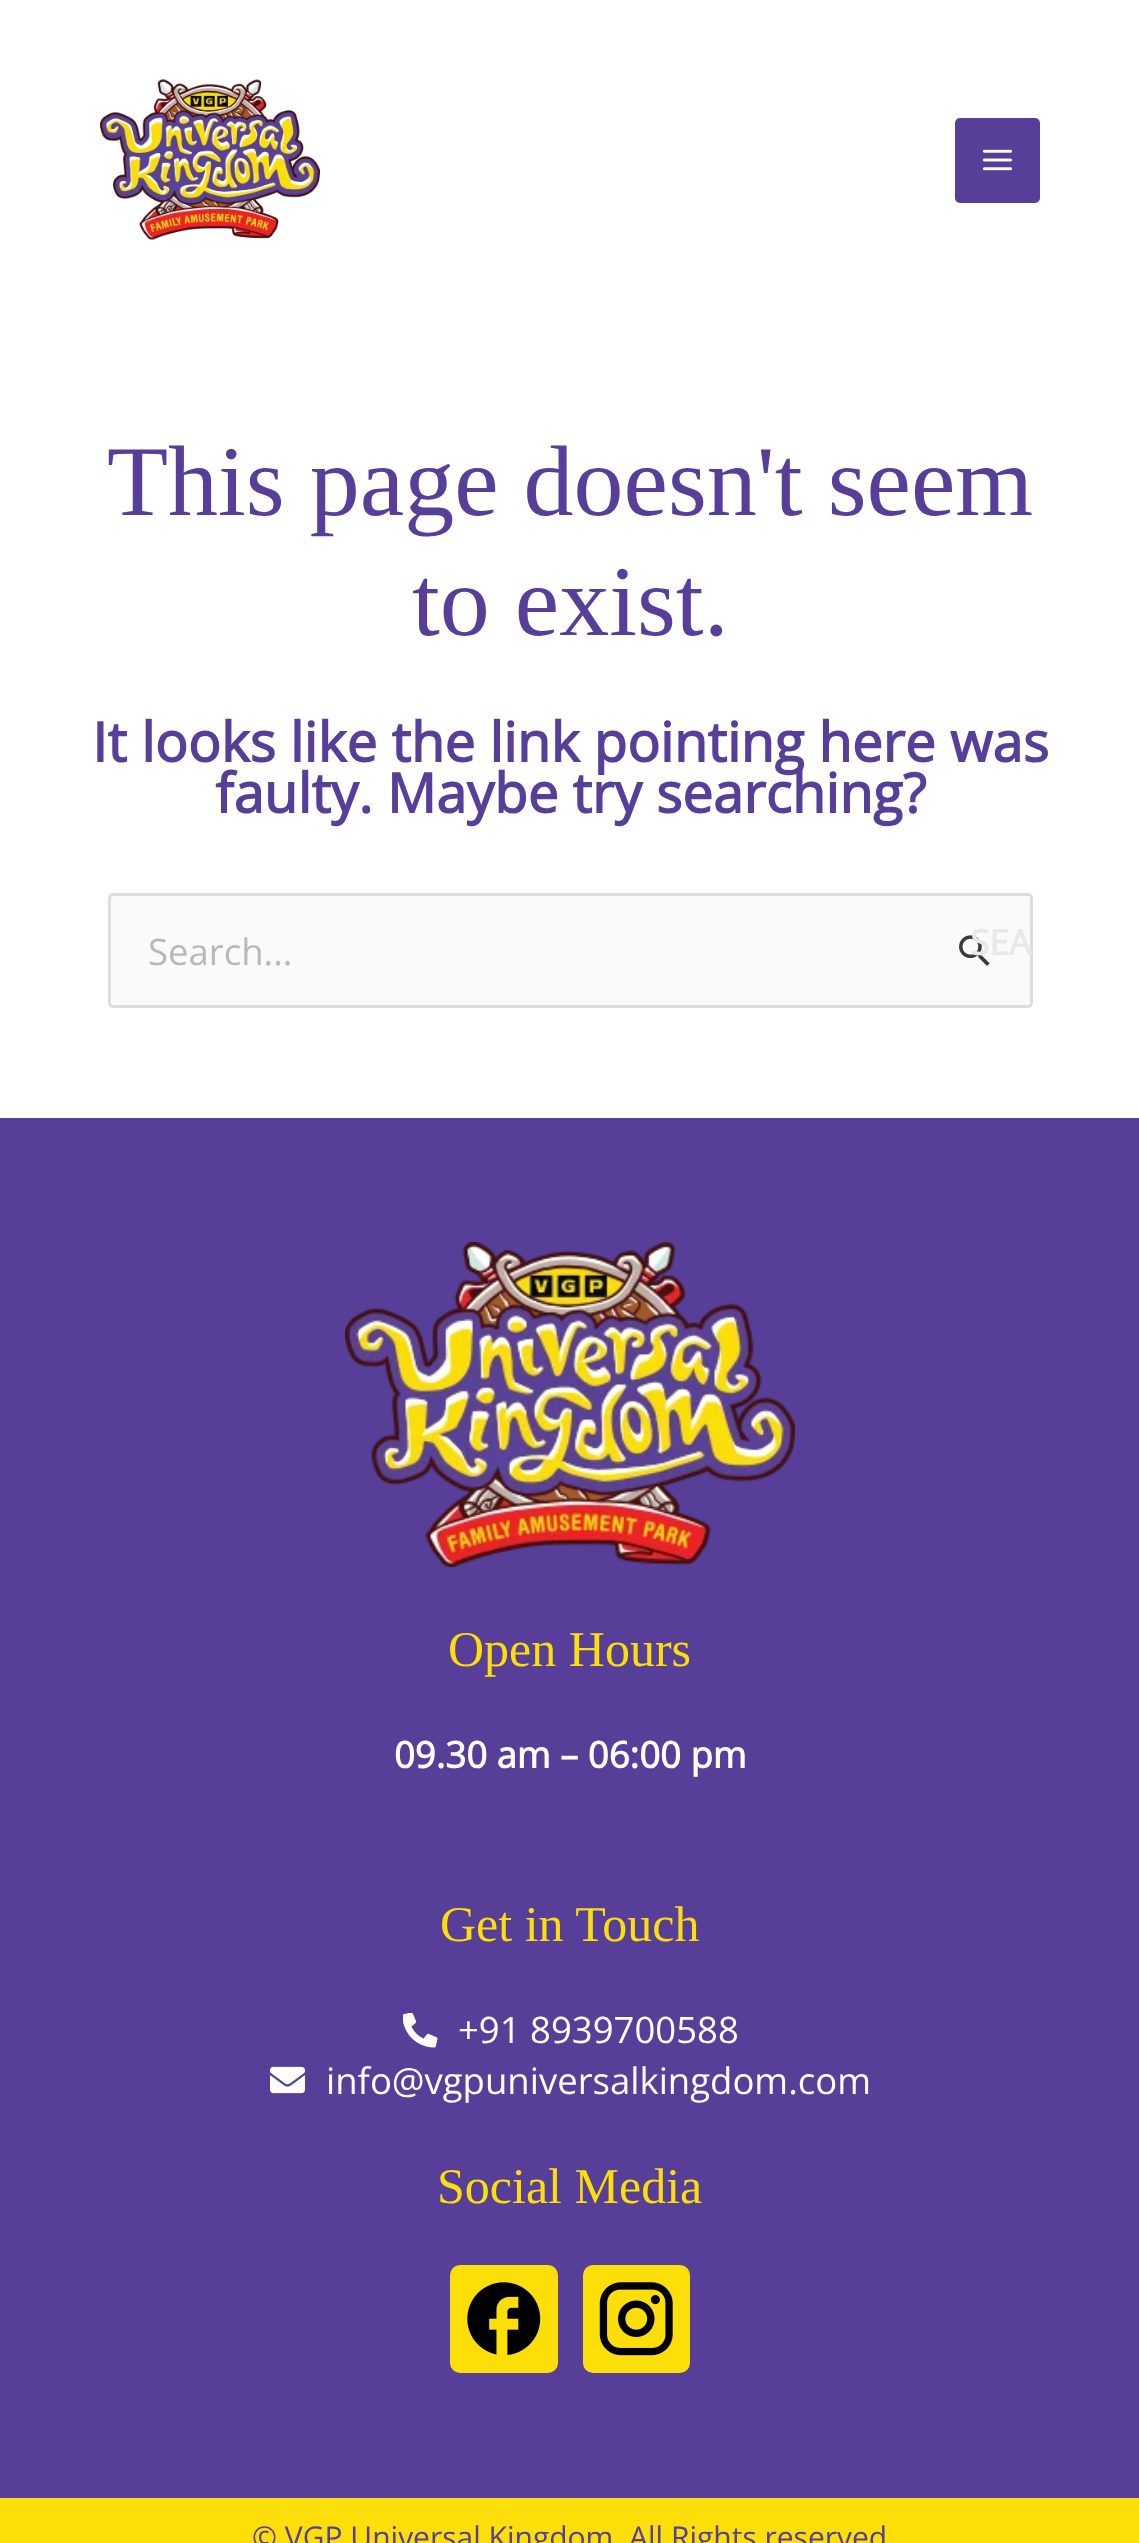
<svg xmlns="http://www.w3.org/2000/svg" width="1139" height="2543">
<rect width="100%" height="100%" fill="#fff"/>
<image x="100" y="79" width="220" height="161" href="media/1.png"/>
<rect x="955" y="118" width="85" height="85" rx="5" fill="#573e99"/>
<image x="982" y="149" width="31" height="22" href="media/2.png"/>
<text x="107" y="515" style="font-family:Liberation Serif;font-size:100px;fill:#573e99">This page doesn't seem</text>
<text x="412" y="635" style="font-family:Liberation Serif;font-size:100px;fill:#573e99">to exist.</text>
<text x="92" y="762" style="font-family:Open Sans;font-size:54.75px;font-weight:bold;fill:#573e99">It looks like the link pointing here was</text>
<text x="215" y="813" style="font-family:Open Sans;font-size:54.75px;font-weight:bold;fill:#573e99">faulty. Maybe try searching?</text>
<rect x="109.5" y="894.5" width="922" height="112" rx="3.5" fill="#fafafa" stroke="#ddd" stroke-width="3"/>
<text x="148" y="965" style="font-family:Open Sans;font-size:36.5px;fill:#b8b8b8">Search...</text>
<image x="959" y="935" width="31" height="31" href="media/3.png"/>
<text x="970" y="955" style="font-family:Open Sans;font-size:35px;font-weight:bold;fill:#e8e8e8">SEA</text>
<rect y="1118" width="1139" height="1380" fill="#573e99"/>
<image x="345" y="1242" width="450" height="325" href="media/4.png"/>
<text x="448" y="1666" style="font-family:Liberation Serif;font-size:50px;fill:#fcde09">Open Hours</text>
<text x="394" y="1768" style="font-family:Open Sans;font-size:36.5px;font-weight:bold;fill:#fff">09.30 am – 06:00 pm</text>
<text x="440" y="1941" style="font-family:Liberation Serif;font-size:50px;fill:#fcde09">Get in Touch</text>
<image x="403" y="2013" width="35" height="35" href="media/5.png"/>
<text x="458" y="2043" style="font-family:Open Sans;font-size:36.5px;fill:#fff">+91 8939700588</text>
<image x="270" y="2066" width="35" height="28" href="media/6.png"/>
<text x="326" y="2094" style="font-family:Open Sans;font-size:36.5px;fill:#fff">info@vgpuniversalkingdom.com</text>
<text x="437" y="2203" style="font-family:Liberation Serif;font-size:50px;fill:#fcde09">Social Media</text>
<rect x="450" y="2265" width="108" height="108" rx="10" fill="#fcde09"/>
<image x="467" y="2282" width="74" height="73" href="media/7.png"/>
<rect x="583" y="2265" width="107" height="108" rx="10" fill="#fcde09"/>
<image x="599" y="2282" width="74" height="74" href="media/8.png"/>
<rect y="2498" width="1139" height="45" fill="#fcde09"/>
<text x="252" y="2548" style="font-family:Open Sans;font-size:30px;fill:#573e99">© VGP Universal Kingdom. All Rights reserved</text>
</svg>
